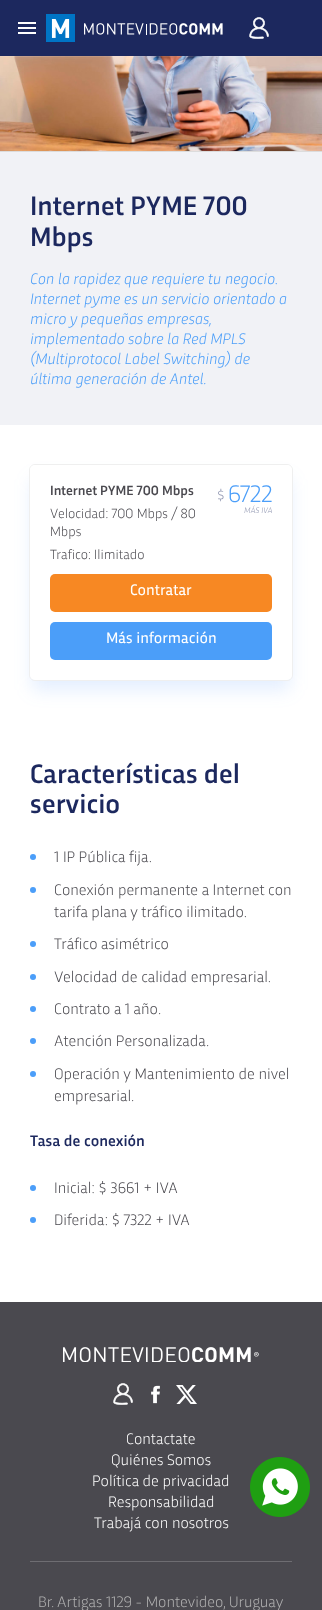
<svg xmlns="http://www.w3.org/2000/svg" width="322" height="1610">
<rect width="100%" height="100%" fill="#fff"/>
<image x="0" y="56" width="322" height="95" href="media/3.png"/>
<rect y="56" width="322" height="1" fill="#ffffff1a"/>
<rect width="322" height="56" fill="#1c285e"/>
<rect x="18" y="27" width="18" height="2" fill="#fff"/>
<rect x="18" y="22" width="18" height="2" fill="#fff"/>
<rect x="18" y="32" width="18" height="2" fill="#fff"/>
<image x="46" y="14" width="177" height="28" href="media/1.png"/>
<image x="249" y="17" width="20" height="22" href="media/2.png"/>
<rect y="152" width="322" height="273" fill="#f1f2f6"/>
<rect y="151" width="322" height="1" fill="#dcdcdc"/>
<text x="30" y="215" style="font-family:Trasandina;font-size:28px;font-weight:500;fill:#1c285e">Internet PYME 700</text>
<text x="30" y="246" style="font-family:Trasandina;font-size:28px;font-weight:500;fill:#1c285e">Mbps</text>
<text x="30" y="284" style="font-family:Trasandina;font-size:16px;font-weight:300;font-style:italic;fill:#4b9ef9">Con la rapidez que requiere tu negocio.</text>
<text x="30" y="304" style="font-family:Trasandina;font-size:16px;font-weight:300;font-style:italic;fill:#4b9ef9">Internet pyme es un servicio orientado a</text>
<text x="30" y="324" style="font-family:Trasandina;font-size:16px;font-weight:300;font-style:italic;fill:#4b9ef9">micro y pequeñas empresas,</text>
<text x="30" y="344" style="font-family:Trasandina;font-size:16px;font-weight:300;font-style:italic;fill:#4b9ef9">implementado sobre la Red MPLS</text>
<text x="30" y="364" style="font-family:Trasandina;font-size:16px;font-weight:300;font-style:italic;fill:#4b9ef9">(Multiprotocol Label Switching) de</text>
<text x="30" y="384" style="font-family:Trasandina;font-size:16px;font-weight:300;font-style:italic;fill:#4b9ef9">última generación de Antel.</text>
<rect x="32" y="479" width="258" height="211" rx="3" fill="#448afe26" filter="blur(9px)"/>
<rect x="29.5" y="464.5" width="263" height="216" rx="5.5" fill="none" stroke="#efefef"/>
<rect x="30" y="465" width="262" height="215" rx="5" fill="#fff"/>
<text x="50" y="495" style="font-family:Trasandina;font-size:14px;font-weight:500;fill:#4a494f">Internet PYME 700 Mbps</text>
<text x="217" y="500" style="font-family:Trasandina;font-size:15px;font-weight:300;fill:#8e94af">$</text>
<text x="228" y="502" style="font-family:Trasandina;font-size:25px;font-weight:300;fill:#4b9ef9">6722</text>
<text x="244" y="513" style="font-family:Trasandina;font-size:8.5px;font-weight:300;font-style:italic;fill:#8e94af">MÁS IVA</text>
<text x="50" y="518" style="font-family:Trasandina;font-size:14px;font-weight:300;fill:#4a494f">Velocidad: 700 Mbps / 80</text>
<text x="50" y="536" style="font-family:Trasandina;font-size:14px;font-weight:300;fill:#4a494f">Mbps</text>
<text x="50" y="559" style="font-family:Trasandina;font-size:14px;font-weight:300;fill:#4a494f">Trafico: Ilimitado</text>
<rect x="50" y="574" width="222" height="38" rx="5" fill="#f78823"/>
<text x="130" y="595" style="font-family:Trasandina;font-size:16px;fill:#fff">Contratar</text>
<rect x="50" y="622" width="222" height="38" rx="5" fill="#4b9ef9"/>
<text x="106" y="643" style="font-family:Trasandina;font-size:16px;fill:#fff">Más información</text>
<text x="30" y="783" style="font-family:Trasandina;font-size:28px;font-weight:500;fill:#1c285e">Características del</text>
<text x="30" y="813" style="font-family:Trasandina;font-size:28px;font-weight:500;fill:#1c285e">servicio</text>
<circle cx="33" cy="857" r="3" fill="#4b9ef9"/>
<text x="54" y="862" style="font-family:Trasandina;font-size:16px;font-weight:300;fill:#4a494f">1 IP Pública fija.</text>
<circle cx="33" cy="890" r="3" fill="#4b9ef9"/>
<text x="54" y="895" style="font-family:Trasandina;font-size:16px;font-weight:300;fill:#4a494f">Conexión permanente a Internet con</text>
<text x="54" y="917" style="font-family:Trasandina;font-size:16px;font-weight:300;fill:#4a494f">tarifa plana y tráfico ilimitado.</text>
<circle cx="33" cy="944" r="3" fill="#4b9ef9"/>
<text x="54" y="949" style="font-family:Trasandina;font-size:16px;font-weight:300;fill:#4a494f">Tráfico asimétrico</text>
<circle cx="33" cy="977" r="3" fill="#4b9ef9"/>
<text x="54" y="982" style="font-family:Trasandina;font-size:16px;font-weight:300;fill:#4a494f">Velocidad de calidad empresarial.</text>
<circle cx="33" cy="1009" r="3" fill="#4b9ef9"/>
<text x="54" y="1014" style="font-family:Trasandina;font-size:16px;font-weight:300;fill:#4a494f">Contrato a 1 año.</text>
<circle cx="33" cy="1041" r="3" fill="#4b9ef9"/>
<text x="54" y="1046" style="font-family:Trasandina;font-size:16px;font-weight:300;fill:#4a494f">Atención Personalizada.</text>
<circle cx="33" cy="1074" r="3" fill="#4b9ef9"/>
<text x="54" y="1079" style="font-family:Trasandina;font-size:16px;font-weight:300;fill:#4a494f">Operación y Mantenimiento de nivel</text>
<text x="54" y="1101" style="font-family:Trasandina;font-size:16px;font-weight:300;fill:#4a494f">empresarial.</text>
<text x="30" y="1146" style="font-family:Trasandina;font-size:16px;font-weight:500;fill:#1c285e">Tasa de conexión</text>
<circle cx="33" cy="1188" r="3" fill="#4b9ef9"/>
<text x="54" y="1193" style="font-family:Trasandina;font-size:16px;font-weight:300;fill:#4a494f">Inicial: $ 3661 + IVA</text>
<circle cx="33" cy="1220" r="3" fill="#4b9ef9"/>
<text x="54" y="1225" style="font-family:Trasandina;font-size:16px;font-weight:300;fill:#4a494f">Diferida: $ 7322 + IVA</text>
<rect y="1302" width="322" height="308" fill="#4a494f"/>
<rect x="30" y="1561" width="262" height="1" fill="#6e6d72"/>
<image x="63" y="1347" width="196" height="15" href="media/4.png"/>
<image x="113" y="1383" width="20" height="22" href="media/5.png"/>
<image x="151" y="1385" width="9" height="19" href="media/6.png"/>
<image x="176" y="1385" width="21" height="19" href="media/7.png"/>
<text x="126" y="1444" style="font-family:Trasandina;font-size:16px;font-weight:300;fill:#fff">Contactate</text>
<text x="111" y="1465" style="font-family:Trasandina;font-size:16px;font-weight:300;fill:#fff">Quiénes Somos</text>
<text x="92" y="1486" style="font-family:Trasandina;font-size:16px;font-weight:300;fill:#fff">Política de privacidad</text>
<text x="108" y="1507" style="font-family:Trasandina;font-size:16px;font-weight:300;fill:#fff">Responsabilidad</text>
<text x="94" y="1528" style="font-family:Trasandina;font-size:16px;font-weight:300;fill:#fff">Trabajá con nosotros</text>
<text x="38" y="1607" style="font-family:Trasandina;font-size:16px;font-weight:300;fill:#b1b1b1">Br. Artigas 1129 - Montevideo, Uruguay</text>
<image x="250" y="1457" width="60" height="60" href="media/8.png"/>
</svg>
